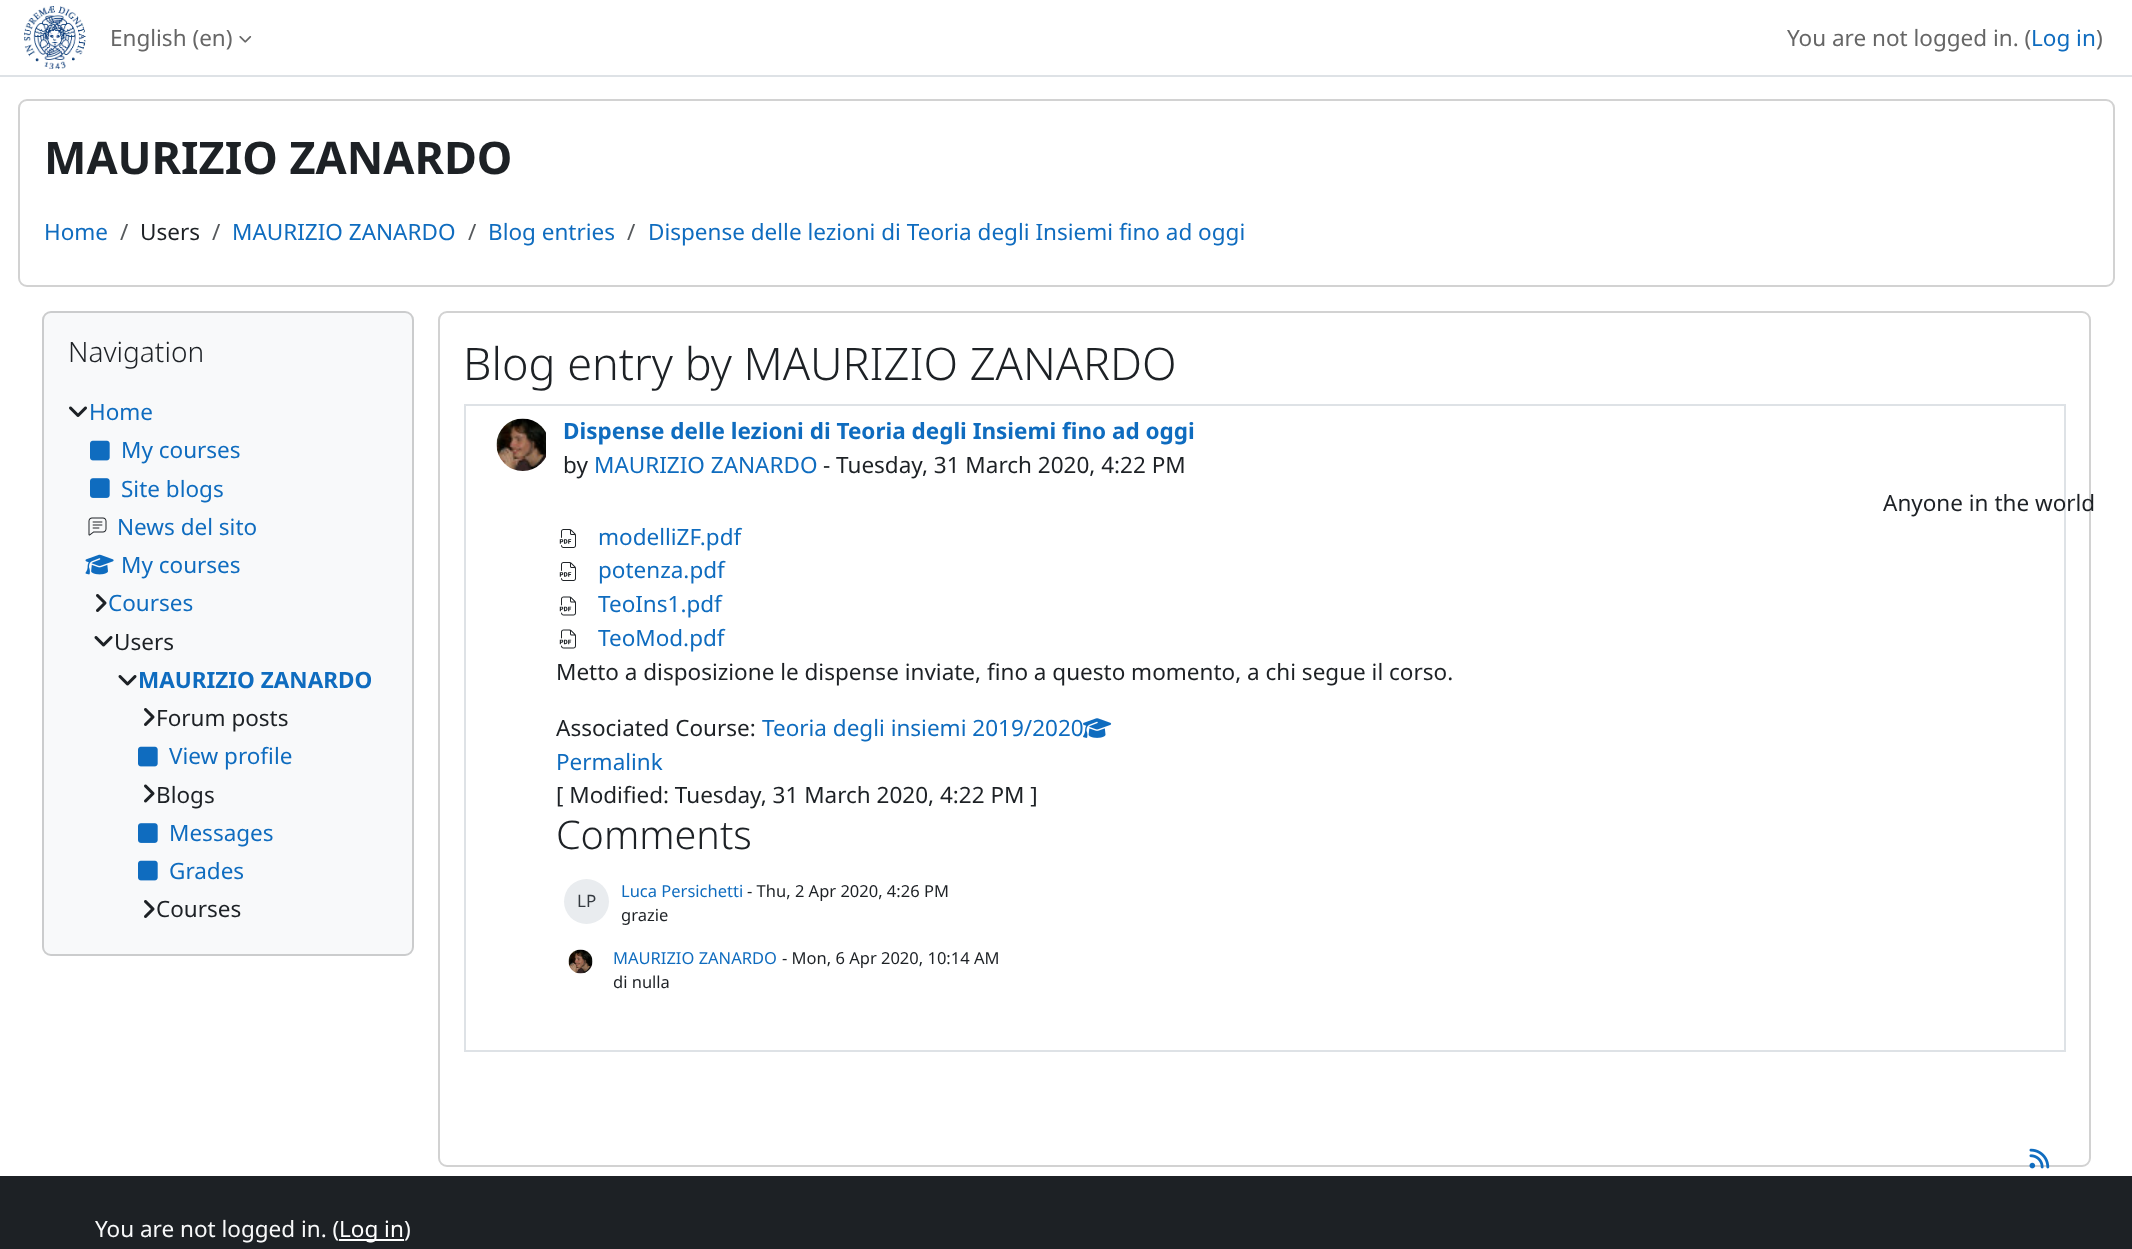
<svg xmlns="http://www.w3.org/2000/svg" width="2132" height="1249">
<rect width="100%" height="100%" fill="#fff"/>
<rect y="75" width="2132" height="2" fill="#dee2e6"/>
<image x="24" y="6" width="62" height="63" href="media/1.png"/>
<text x="110" y="46" style="font-family:Noto Sans;font-size:22.5px;fill:#666">English (en)</text>
<image x="239" y="36" width="13" height="7" href="media/2.png"/>
<text x="1787" y="46" style="font-family:Noto Sans;font-size:22.5px;fill:#666">You are not logged in. (</text>
<text x="2031" y="46" style="font-family:Noto Sans;font-size:22.5px;fill:#0f6cbf">Log in</text>
<text x="2096" y="46" style="font-family:Noto Sans;font-size:22.5px;fill:#666">)</text>
<rect x="19" y="100" width="2095" height="186" rx="8" fill="none" stroke="#d2d2d2" stroke-width="2"/>
<text x="44" y="174" style="font-family:Noto Sans;font-size:45px;font-weight:bold;fill:#1d2125">MAURIZIO ZANARDO</text>
<text x="44" y="240" style="font-family:Noto Sans;font-size:22.5px;fill:#0f6cbf">Home</text>
<text x="120" y="240" style="font-family:Noto Sans;font-size:22.5px;fill:#56595c">/</text>
<text x="140" y="240" style="font-family:Noto Sans;font-size:22.5px;fill:#1d2125">Users</text>
<text x="212" y="240" style="font-family:Noto Sans;font-size:22.5px;fill:#56595c">/</text>
<text x="232" y="240" style="font-family:Noto Sans;font-size:22.5px;fill:#0f6cbf">MAURIZIO ZANARDO</text>
<text x="468" y="240" style="font-family:Noto Sans;font-size:22.5px;fill:#56595c">/</text>
<text x="488" y="240" style="font-family:Noto Sans;font-size:22.5px;fill:#0f6cbf">Blog entries</text>
<text x="627" y="240" style="font-family:Noto Sans;font-size:22.5px;fill:#56595c">/</text>
<text x="648" y="240" style="font-family:Noto Sans;font-size:22.5px;fill:#0f6cbf">Dispense delle lezioni di Teoria degli Insiemi fino ad oggi</text>
<rect x="42" y="311" width="372" height="645" rx="9" fill="#f8f9fa"/>
<rect x="43" y="312" width="370" height="643" rx="8" fill="none" stroke="#0000002e" stroke-width="2"/>
<text x="68" y="362" style="font-family:Noto Sans;font-size:28px;font-weight:300;fill:#1d2125">Navigation</text>
<image x="69" y="406" width="18" height="11" href="media/3.png"/>
<text x="89" y="420" style="font-family:Noto Sans;font-size:22.5px;fill:#0f6cbf">Home</text>
<image x="90" y="440" width="20" height="21" href="media/4.png"/>
<text x="121" y="458" style="font-family:Noto Sans;font-size:22.5px;fill:#0f6cbf">My courses</text>
<image x="90" y="478" width="20" height="20" href="media/5.png"/>
<text x="121" y="497" style="font-family:Noto Sans;font-size:22.5px;fill:#0f6cbf">Site blogs</text>
<image x="88" y="517" width="19" height="19" href="media/6.png"/>
<text x="117" y="535" style="font-family:Noto Sans;font-size:22.5px;fill:#0f6cbf">News del sito</text>
<image x="85" y="554" width="29" height="21" href="media/7.png"/>
<text x="121" y="573" style="font-family:Noto Sans;font-size:22.5px;fill:#0f6cbf">My courses</text>
<image x="96" y="594" width="11" height="18" href="media/8.png"/>
<text x="108" y="611" style="font-family:Noto Sans;font-size:22.5px;fill:#0f6cbf">Courses</text>
<image x="94" y="636" width="19" height="11" href="media/9.png"/>
<text x="114" y="650" style="font-family:Noto Sans;font-size:22.5px;fill:#1d2125">Users</text>
<image x="118" y="675" width="19" height="11" href="media/9.png"/>
<text x="138" y="688" style="font-family:Noto Sans;font-size:22.5px;font-weight:bold;fill:#0f6cbf">MAURIZIO ZANARDO</text>
<image x="144" y="708" width="11" height="18" href="media/8.png"/>
<text x="156" y="726" style="font-family:Noto Sans;font-size:22.5px;fill:#1d2125">Forum posts</text>
<image x="138" y="746" width="20" height="21" href="media/4.png"/>
<text x="169" y="764" style="font-family:Noto Sans;font-size:22.5px;fill:#0f6cbf">View profile</text>
<image x="144" y="784" width="11" height="19" href="media/10.png"/>
<text x="156" y="803" style="font-family:Noto Sans;font-size:22.5px;fill:#1d2125">Blogs</text>
<image x="138" y="823" width="20" height="20" href="media/5.png"/>
<text x="169" y="841" style="font-family:Noto Sans;font-size:22.5px;fill:#0f6cbf">Messages</text>
<image x="138" y="860" width="20" height="21" href="media/4.png"/>
<text x="169" y="879" style="font-family:Noto Sans;font-size:22.5px;fill:#0f6cbf">Grades</text>
<image x="144" y="900" width="11" height="18" href="media/8.png"/>
<text x="156" y="917" style="font-family:Noto Sans;font-size:22.5px;fill:#1d2125">Courses</text>
<rect x="439" y="312" width="1651" height="854" rx="8" fill="none" stroke="#d2d2d2" stroke-width="2"/>
<text x="463" y="380" style="font-family:Noto Sans;font-size:45px;font-weight:300;fill:#1d2125">Blog entry by MAURIZIO ZANARDO</text>
<rect x="465" y="405" width="1600" height="646" fill="none" stroke="#dee2e6" stroke-width="2"/>
<image x="496" y="418" width="50" height="53" href="media/11.png"/>
<text x="563" y="439" style="font-family:Noto Sans;font-size:22.5px;font-weight:bold;fill:#0f6cbf">Dispense delle lezioni di Teoria degli Insiemi fino ad oggi</text>
<text x="563" y="473" style="font-family:Noto Sans;font-size:22.5px;fill:#1d2125">by</text>
<text x="594" y="473" style="font-family:Noto Sans;font-size:22.5px;fill:#0f6cbf">MAURIZIO ZANARDO</text>
<text x="823" y="473" style="font-family:Noto Sans;font-size:22.5px;fill:#1d2125">- Tuesday, 31 March 2020, 4:22 PM</text>
<text x="1883" y="511" style="font-family:Noto Sans;font-size:22.5px;fill:#1d2125">Anyone in the world</text>
<image x="559" y="529" width="17" height="19" href="media/12.png"/>
<text x="598" y="545" style="font-family:Noto Sans;font-size:22.5px;fill:#0f6cbf">modelliZF.pdf</text>
<image x="559" y="562" width="17" height="19" href="media/12.png"/>
<text x="598" y="578" style="font-family:Noto Sans;font-size:22.5px;fill:#0f6cbf">potenza.pdf</text>
<image x="559" y="596" width="17" height="20" href="media/13.png"/>
<text x="598" y="612" style="font-family:Noto Sans;font-size:22.5px;fill:#0f6cbf">TeoIns1.pdf</text>
<image x="559" y="629" width="17" height="20" href="media/13.png"/>
<text x="598" y="646" style="font-family:Noto Sans;font-size:22.5px;fill:#0f6cbf">TeoMod.pdf</text>
<text x="556" y="680" style="font-family:Noto Sans;font-size:22.5px;fill:#1d2125">Metto a disposizione le dispense inviate, fino a questo momento, a chi segue il corso.</text>
<text x="556" y="736" style="font-family:Noto Sans;font-size:22.5px;fill:#1d2125">Associated Course:</text>
<text x="762" y="736" style="font-family:Noto Sans;font-size:22.5px;fill:#0f6cbf">Teoria degli insiemi 2019/2020</text>
<image x="1083" y="718" width="29" height="20" href="media/14.png"/>
<text x="556" y="770" style="font-family:Noto Sans;font-size:22.5px;fill:#0f6cbf">Permalink</text>
<text x="556" y="803" style="font-family:Noto Sans;font-size:22.5px;fill:#1d2125">[ Modified: Tuesday, 31 March 2020, 4:22 PM ]</text>
<text x="556" y="849" style="font-family:Noto Sans;font-size:39.5px;font-weight:300;fill:#1d2125">Comments</text>
<circle cx="586.5" cy="901.5" r="22.5" fill="#e9ecef"/>
<text x="577" y="907" style="font-family:Noto Sans;font-size:17px;fill:#343a40">LP</text>
<text x="621" y="897" style="font-family:Noto Sans;font-size:16.5px;fill:#0f6cbf">Luca Persichetti</text>
<text x="747" y="897" style="font-family:Noto Sans;font-size:16.5px;fill:#1d2125">- Thu, 2 Apr 2020, 4:26 PM</text>
<text x="621" y="921" style="font-family:Noto Sans;font-size:16.5px;fill:#1d2125">grazie</text>
<image x="568" y="949" width="25" height="25" href="media/15.png"/>
<text x="613" y="964" style="font-family:Noto Sans;font-size:16.5px;fill:#0f6cbf">MAURIZIO ZANARDO</text>
<text x="782" y="964" style="font-family:Noto Sans;font-size:16.5px;fill:#1d2125">- Mon, 6 Apr 2020, 10:14 AM</text>
<text x="613" y="988" style="font-family:Noto Sans;font-size:16.5px;fill:#1d2125">di nulla</text>
<image x="2029" y="1148" width="21" height="21" href="media/16.png"/>
<rect y="1176" width="2132" height="73" fill="#1d2125"/>
<text x="95" y="1237" style="font-family:Noto Sans;font-size:22.5px;fill:#f8f9fa">You are not logged in. (</text>
<rect x="339" y="1239" width="65" height="2" fill="#fff"/>
<text x="339" y="1237" style="font-family:Noto Sans;font-size:22.5px;fill:#fff">Log in</text>
<text x="404" y="1237" style="font-family:Noto Sans;font-size:22.5px;fill:#f8f9fa">)</text>
</svg>
